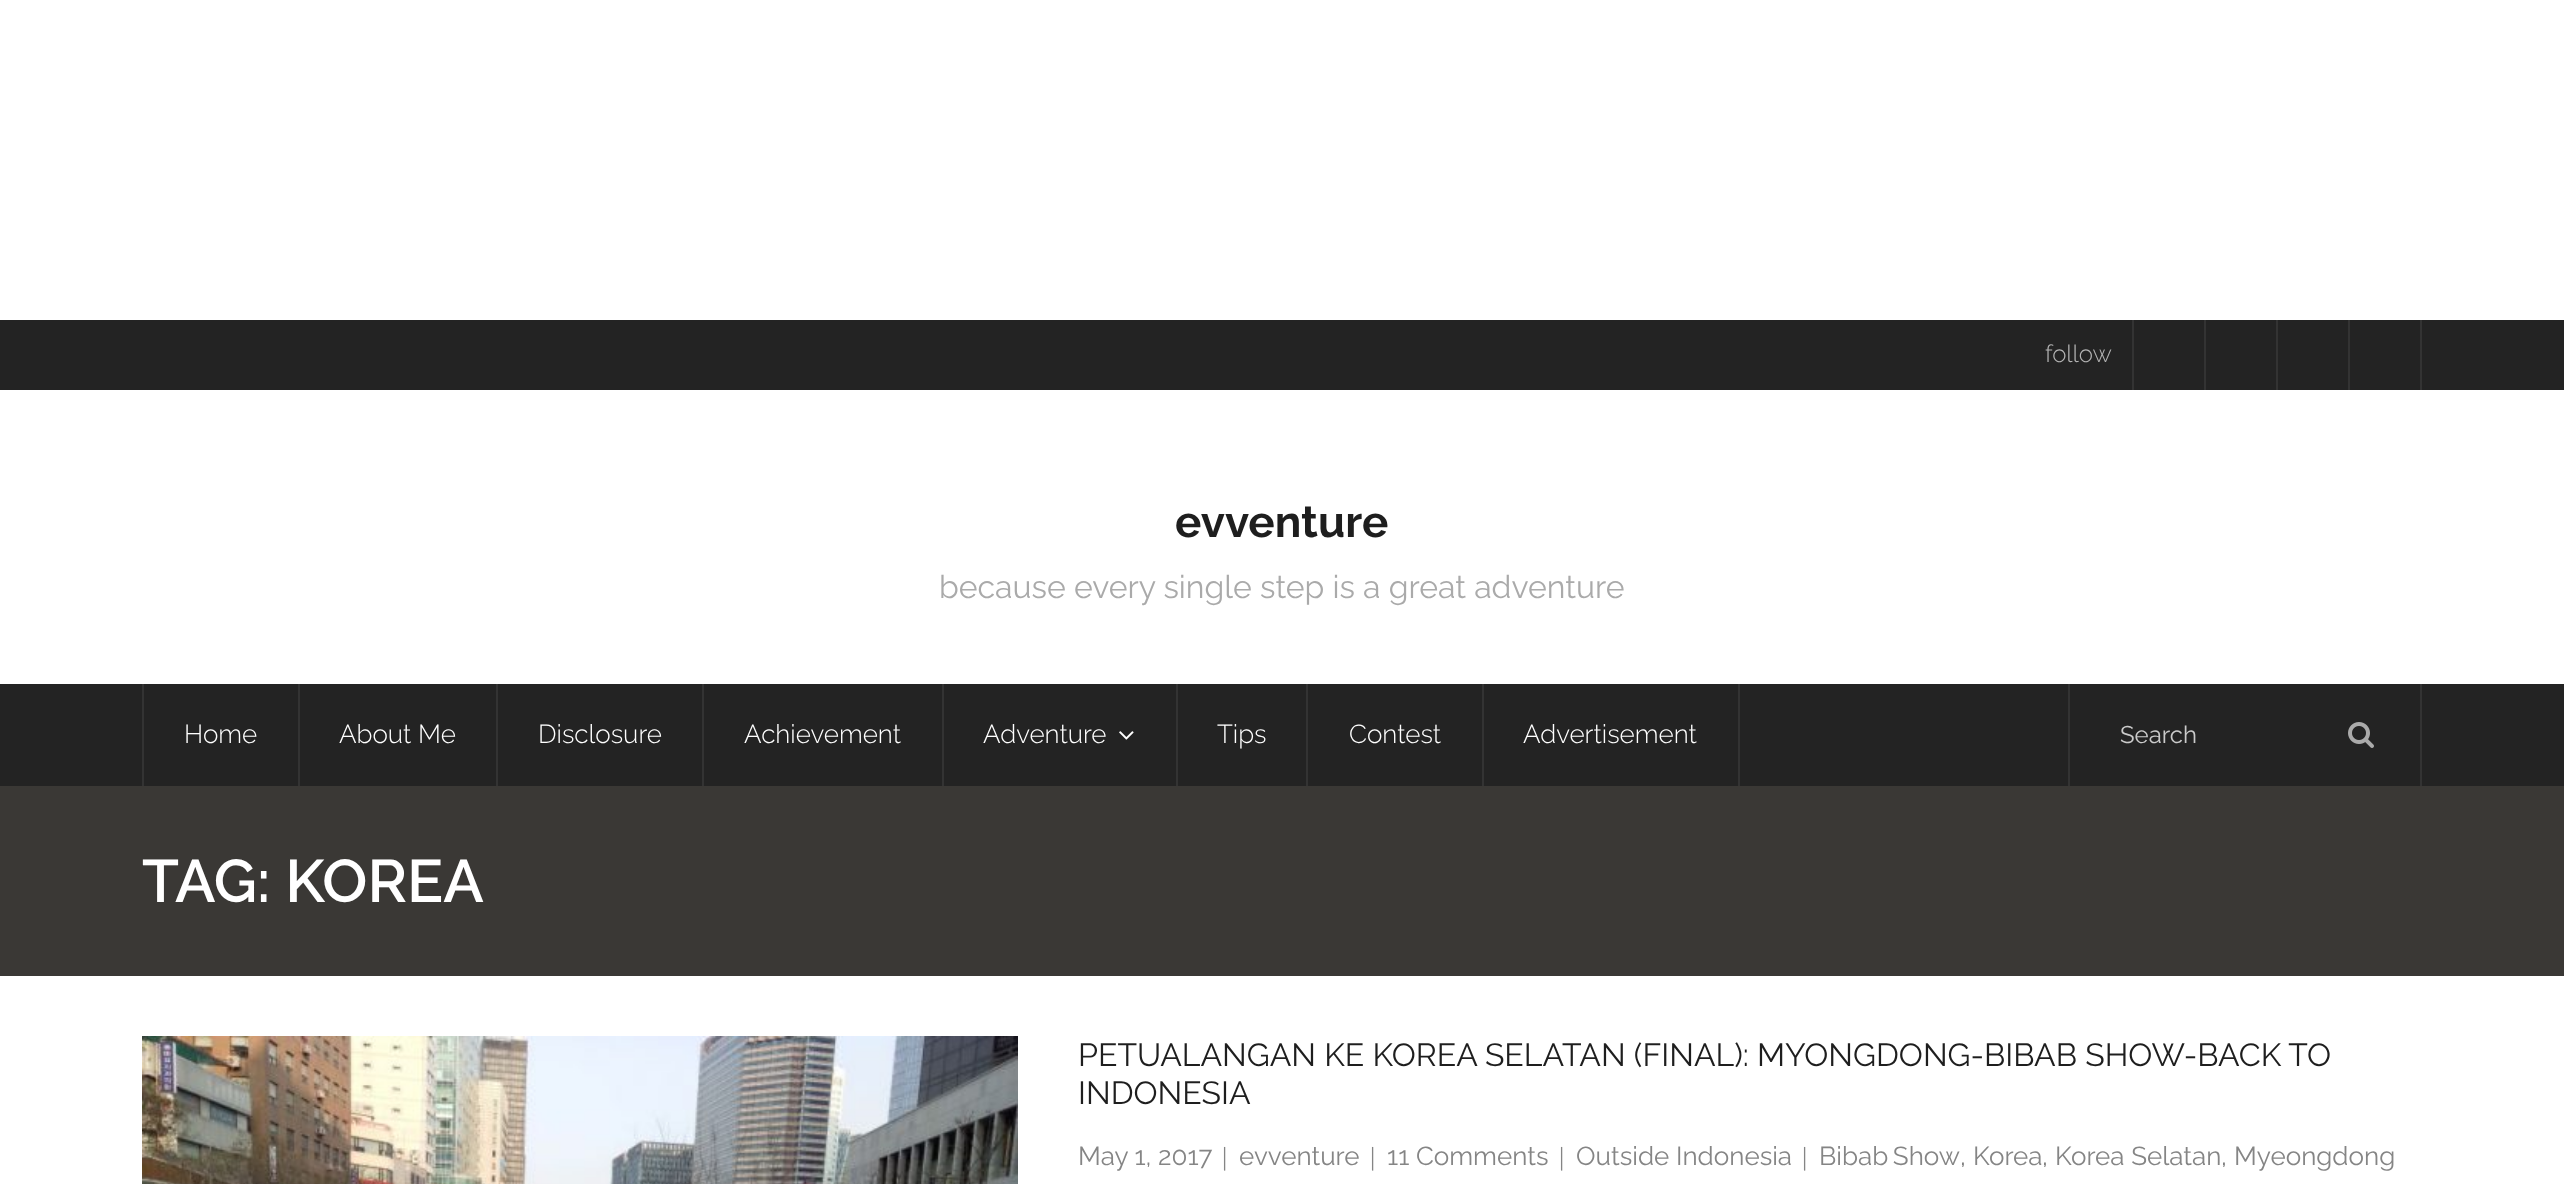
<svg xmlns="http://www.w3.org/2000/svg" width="2564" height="1184">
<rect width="100%" height="100%" fill="#fff"/>
<rect y="320" width="2564" height="70" fill="#232323"/>
<text x="2045" y="362" style="font-family:Raleway;font-size:24px;font-weight:300;fill:#b3b3b3">follow</text>
<rect x="2132" y="320" width="2" height="70" fill="#333"/>
<rect x="2204" y="320" width="2" height="70" fill="#333"/>
<rect x="2276" y="320" width="2" height="70" fill="#333"/>
<rect x="2420" y="320" width="2" height="70" fill="#333"/>
<rect x="2348" y="320" width="2" height="70" fill="#333"/>
<text x="1175" y="537" style="font-family:Raleway;font-size:44px;font-weight:bold;fill:#1e1e1e">evventure</text>
<text x="939" y="598" style="font-family:Raleway;font-size:32px;fill:#aaa">because every single step is a great adventure</text>
<rect y="684" width="2564" height="102" fill="#232323"/>
<rect x="142" y="684" width="2" height="102" fill="#333"/>
<text x="184" y="743" style="font-family:Raleway;font-size:26px;font-weight:300;fill:#fff">Home</text>
<rect x="298" y="684" width="2" height="102" fill="#333"/>
<text x="339" y="743" style="font-family:Raleway;font-size:26px;font-weight:300;fill:#fff">About Me</text>
<rect x="496" y="684" width="2" height="102" fill="#333"/>
<text x="538" y="743" style="font-family:Raleway;font-size:26px;font-weight:300;fill:#fff">Disclosure</text>
<rect x="702" y="684" width="2" height="102" fill="#333"/>
<text x="744" y="743" style="font-family:Raleway;font-size:26px;font-weight:300;fill:#fff">Achievement</text>
<rect x="942" y="684" width="2" height="102" fill="#333"/>
<text x="983" y="743" style="font-family:Raleway;font-size:26px;font-weight:300;fill:#fff">Adventure</text>
<image x="1119" y="731" width="15" height="9" href="media/1.png"/>
<rect x="1176" y="684" width="2" height="102" fill="#333"/>
<text x="1217" y="743" style="font-family:Raleway;font-size:26px;font-weight:300;fill:#fff">Tips</text>
<rect x="1306" y="684" width="2" height="102" fill="#333"/>
<text x="1349" y="743" style="font-family:Raleway;font-size:26px;font-weight:300;fill:#fff">Contest</text>
<rect x="1738" y="684" width="2" height="102" fill="#333"/>
<rect x="1482" y="684" width="2" height="102" fill="#333"/>
<text x="1523" y="743" style="font-family:Raleway;font-size:26px;font-weight:300;fill:#fff">Advertisement</text>
<rect x="2420" y="684" width="2" height="102" fill="#333"/>
<rect x="2068" y="684" width="2" height="102" fill="#333"/>
<text x="2120" y="743" style="font-family:Raleway;font-size:24px;fill:#cacaca">Search</text>
<image x="2348" y="722" width="26" height="26" href="media/2.png"/>
<rect y="786" width="2564" height="190" fill="#3a3835"/>
<text x="142" y="902" style="font-family:Raleway;font-size:60px;font-weight:600;fill:#fff">TAG: KOREA</text>
<image x="142" y="1036" width="876" height="148" href="media/3.png"/>
<text x="1078" y="1066" style="font-family:Raleway;font-size:32px;fill:#1e1e1e">PETUALANGAN KE KOREA SELATAN (FINAL): MYONGDONG-BIBAB SHOW-BACK TO</text>
<text x="1078" y="1104" style="font-family:Raleway;font-size:32px;fill:#1e1e1e">INDONESIA</text>
<text x="1078" y="1165" style="font-family:Raleway;font-size:26px;fill:#858585">May 1, 2017</text>
<text x="1222" y="1165" style="font-family:Liberation Serif;font-size:26px;fill:#858585">|</text>
<text x="1239" y="1165" style="font-family:Raleway;font-size:26px;fill:#858585">evventure</text>
<text x="1370" y="1165" style="font-family:Liberation Serif;font-size:26px;fill:#858585">|</text>
<text x="1387" y="1165" style="font-family:Raleway;font-size:26px;fill:#858585">11 Comments</text>
<text x="1559" y="1165" style="font-family:Liberation Serif;font-size:26px;fill:#858585">|</text>
<text x="1576" y="1165" style="font-family:Raleway;font-size:26px;fill:#858585">Outside Indonesia</text>
<text x="1802" y="1165" style="font-family:Liberation Serif;font-size:26px;fill:#858585">|</text>
<text x="1819" y="1165" word-spacing="-2" style="font-family:Raleway;font-size:26px;fill:#858585">Bibab Show</text>
<text x="1960" y="1165" style="font-family:Raleway;font-size:26px;fill:#777">,</text>
<text x="1973" y="1165" style="font-family:Raleway;font-size:26px;fill:#858585">Korea</text>
<text x="2042" y="1165" style="font-family:Raleway;font-size:26px;fill:#777">,</text>
<text x="2055" y="1165" style="font-family:Raleway;font-size:26px;fill:#858585">Korea Selatan</text>
<text x="2221" y="1165" style="font-family:Raleway;font-size:26px;fill:#777">,</text>
<text x="2234" y="1165" style="font-family:Raleway;font-size:26px;fill:#858585">Myeongdong</text>
</svg>
